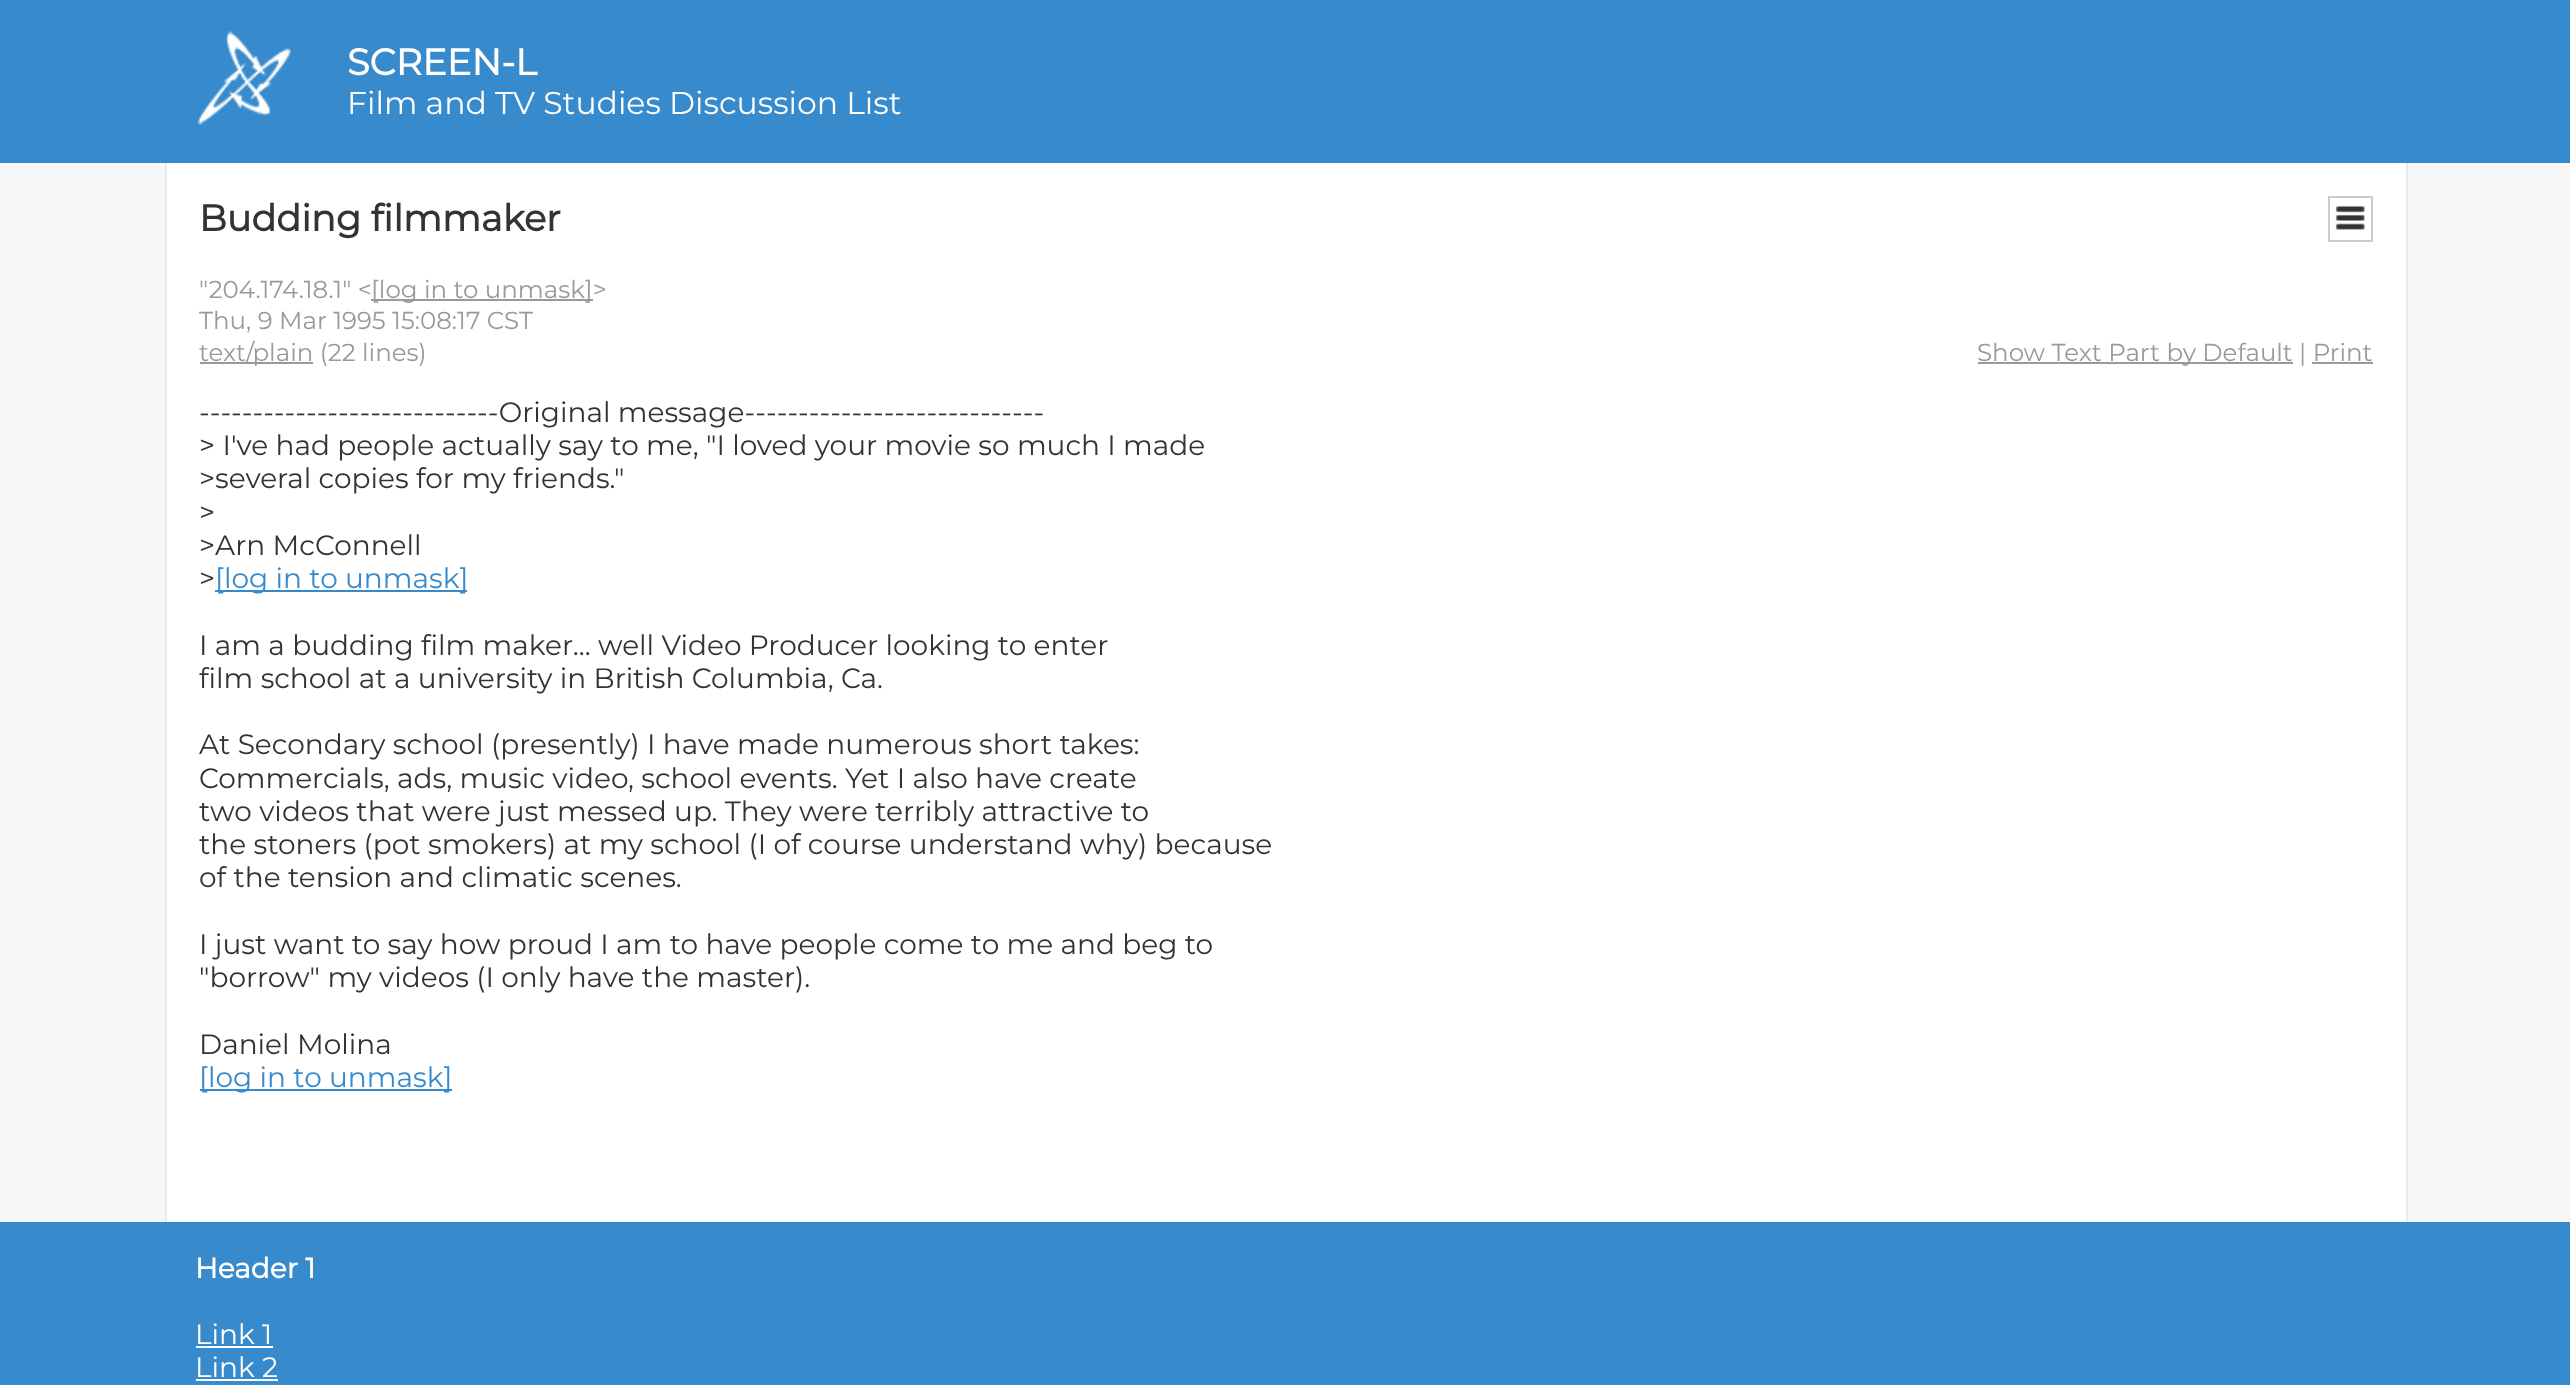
<svg xmlns="http://www.w3.org/2000/svg" width="2570" height="1385">
<rect width="100%" height="100%" fill="#f7f7f7"/>
<rect width="2570" height="163" fill="#378acc"/>
<image x="197" y="31" width="94" height="94" href="media/1.png"/>
<text x="347" y="75" style="font-family:Montserrat;font-size:36.75px;font-weight:bold;fill:#fff">SCREEN-L</text>
<text x="347" y="114" style="font-family:Montserrat;font-size:31.5px;font-weight:100;fill:#fff">Film and TV Studies Discussion List</text>
<rect x="167" y="163" width="2239" height="1059" fill="#fff"/>
<rect x="2406" y="163" width="2" height="1059" fill="#eaeaea"/>
<rect x="165" y="163" width="2" height="1059" fill="#eaeaea"/>
<rect x="2329" y="197" width="43" height="44" fill="none" stroke="#ccc" stroke-width="2"/>
<image x="2335" y="206" width="30" height="24" href="media/2.png"/>
<text x="199" y="231" style="font-family:Montserrat;font-size:36.75px;font-weight:bold;fill:#333">Budding filmmaker</text>
<text x="199" y="298" style="font-family:Montserrat;font-size:24.5px;font-weight:100;fill:#999">"204.174.18.1" &lt;</text>
<rect x="371" y="299" width="222" height="2" fill="#999"/>
<text x="371" y="298" style="font-family:Montserrat;font-size:24.5px;font-weight:100;fill:#999">[log in to unmask]&gt;</text>
<text x="199" y="329" style="font-family:Montserrat;font-size:24.5px;font-weight:100;fill:#999">Thu, 9 Mar 1995 15:08:17 CST</text>
<rect x="200" y="362" width="113" height="2" fill="#999"/>
<text x="199" y="361" style="font-family:Montserrat;font-size:24.5px;font-weight:100;fill:#999">text/plain (22 lines)</text>
<rect x="1978" y="362" width="315" height="2" fill="#999"/>
<text x="1977" y="361" style="font-family:Montserrat;font-size:24.5px;font-weight:100;fill:#999">Show Text Part by Default | Print</text>
<rect x="2312" y="362" width="61" height="2" fill="#999"/>
<text x="199" y="422" style="font-family:Montserrat;font-size:28px;font-weight:100;fill:#333">----------------------------Original message----------------------------</text>
<text x="199" y="455" style="font-family:Montserrat;font-size:28px;font-weight:100;fill:#333">&gt; I've had people actually say to me, "I loved your movie so much I made</text>
<text x="199" y="488" style="font-family:Montserrat;font-size:28px;font-weight:100;fill:#333">&gt;several copies for my friends."</text>
<text x="199" y="522" style="font-family:Montserrat;font-size:28px;font-weight:100;fill:#333">&gt;</text>
<text x="199" y="555" style="font-family:Montserrat;font-size:28px;font-weight:100;fill:#333">&gt;Arn McConnell</text>
<text x="199" y="588" style="font-family:Montserrat;font-size:28px;font-weight:100;fill:#333">&gt;</text>
<rect x="215" y="590" width="252" height="2" fill="#378acc"/>
<text x="215" y="588" style="font-family:Montserrat;font-size:28px;font-weight:100;fill:#378acc">[log in to unmask]</text>
<text x="199" y="655" style="font-family:Montserrat;font-size:28px;font-weight:100;fill:#333">I am a budding film maker... well Video Producer looking to enter</text>
<text x="199" y="688" style="font-family:Montserrat;font-size:28px;font-weight:100;fill:#333">film school at a university in British Columbia, Ca.</text>
<text x="199" y="754" style="font-family:Montserrat;font-size:28px;font-weight:100;fill:#333">At Secondary school (presently) I have made numerous short takes:</text>
<text x="199" y="788" style="font-family:Montserrat;font-size:28px;font-weight:100;fill:#333">Commercials, ads, music video, school events. Yet I also have create</text>
<text x="199" y="821" style="font-family:Montserrat;font-size:28px;font-weight:100;fill:#333">two videos that were just messed up. They were terribly attractive to</text>
<text x="199" y="854" style="font-family:Montserrat;font-size:28px;font-weight:100;fill:#333">the stoners (pot smokers) at my school (I of course understand why) because</text>
<text x="199" y="887" style="font-family:Montserrat;font-size:28px;font-weight:100;fill:#333">of the tension and climatic scenes.</text>
<text x="199" y="954" style="font-family:Montserrat;font-size:28px;font-weight:100;fill:#333">I just want to say how proud I am to have people come to me and beg to</text>
<text x="199" y="987" style="font-family:Montserrat;font-size:28px;font-weight:100;fill:#333">"borrow" my videos (I only have the master).</text>
<text x="199" y="1054" style="font-family:Montserrat;font-size:28px;font-weight:100;fill:#333">Daniel Molina</text>
<rect x="200" y="1089" width="252" height="2" fill="#378acc"/>
<text x="199" y="1087" style="font-family:Montserrat;font-size:28px;font-weight:100;fill:#378acc">[log in to unmask]</text>
<rect y="1222" width="2570" height="163" fill="#378acc"/>
<text x="195" y="1278" style="font-family:Montserrat;font-size:28px;font-weight:bold;fill:#fff">Header 1</text>
<text x="195" y="1344" style="font-family:Montserrat;font-size:28px;font-weight:100;fill:#fff">Link 1</text>
<rect x="196" y="1346" width="77" height="2" fill="#fff"/>
<text x="195" y="1377" style="font-family:Montserrat;font-size:28px;font-weight:100;fill:#fff">Link 2</text>
<rect x="196" y="1379" width="82" height="2" fill="#fff"/>
</svg>
